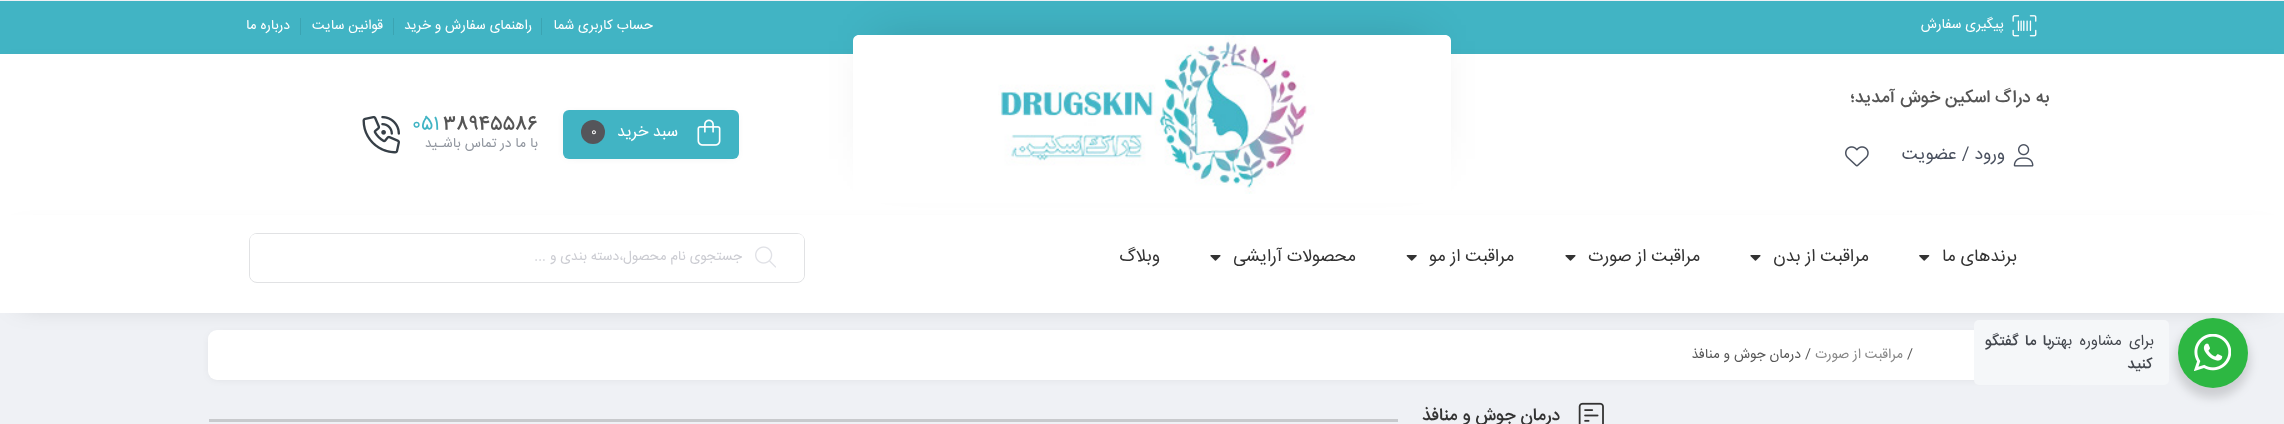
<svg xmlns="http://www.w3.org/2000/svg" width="2284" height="424">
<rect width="100%" height="100%" fill="#eff1f5"/>
<rect y="1" width="2284" height="53" fill="#41b4c4"/>
<image x="2012" y="15" width="25" height="22" href="media/1.png"/>
<text x="2004" y="28" style="font-family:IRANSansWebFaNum;font-size:13.75px;direction:rtl;fill:#fff">پیگیری سفارش</text>
<text x="653" y="29" style="font-family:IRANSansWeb;font-size:13.75px;direction:rtl;fill:#fff">حساب کاربری شما</text>
<rect x="541" y="18" width="1" height="17" fill="#3ba4b2"/>
<text x="532" y="29" style="font-family:IRANSansWeb;font-size:13.75px;direction:rtl;fill:#fff">راهنمای سفارش و خرید</text>
<rect x="393" y="18" width="1" height="17" fill="#3ba4b2"/>
<text x="383" y="29" style="font-family:IRANSansWeb;font-size:13.75px;direction:rtl;fill:#fff">قوانین سایت</text>
<rect x="300" y="18" width="1" height="17" fill="#3ba4b2"/>
<text x="290" y="29" style="font-family:IRANSansWeb;font-size:13.75px;direction:rtl;fill:#fff">درباره ما</text>
<rect x="9" y="63" width="2267" height="143" fill="#828999" filter="blur(6px)"/>
<rect y="54" width="2284" height="161" fill="#fff"/>
<text x="2049" y="102" style="font-family:IRANSansWeb;font-size:17.5px;font-weight:500;direction:rtl;fill:#555">به دراگ اسکین خوش آمدید؛</text>
<image x="2013" y="144" width="21" height="23" href="media/2.png"/>
<text x="2005" y="159" style="font-family:IRANSansWebFaNum;font-size:17.5px;direction:rtl;fill:#4a515f">ورود / عضویت</text>
<image x="1845" y="146" width="24" height="21" href="media/3.png"/>
<rect x="878" y="41" width="548" height="118" fill="#00000029" filter="blur(24px)"/>
<path d="M859 35h586c3.5 0 6 2.5 6 6v162h-598v-162c0-3.5 2.5-6 6-6z" fill="#fff"/>
<image x="998" y="35" width="317" height="159" href="media/4.png"/>
<rect x="566" y="115" width="169" height="41" rx="2.5" fill="#0000001a" filter="blur(4.5px)"/>
<rect x="563" y="110" width="176" height="49" rx="6" fill="#41b4c4"/>
<image x="697" y="119" width="24" height="27" href="media/5.png"/>
<text x="678" y="136" style="font-family:IRANSansWeb;font-size:16px;direction:rtl;fill:#fff">سبد خرید</text>
<circle cx="593" cy="132" r="12" fill="#55555a"/>
<text x="591" y="135" style="font-family:IRANSansWebFaNum;font-size:12px;fill:#fff">0</text>
<text x="443" y="129" style="font-family:IRANSansWebFaNum;font-size:18.75px;font-weight:500;fill:#555">38945586</text>
<text x="412" y="129" style="font-family:IRANSansWebFaNum;font-size:18.75px;fill:#41b4c4">051</text>
<text x="538" y="147" style="font-family:IRANSansWeb;font-size:13.75px;direction:rtl;fill:#91969f">با ما در تماس باشـید</text>
<image x="362" y="115" width="38" height="39" href="media/6.png"/>
<rect x="211" y="335" width="1863" height="43" rx="5" fill="#0000001a" filter="blur(4.5px)"/>
<rect x="208" y="330" width="1870" height="50" rx="9" fill="#fff"/>
<rect x="20" y="241" width="2245" height="58" fill="#0000004f" filter="blur(14.5px)"/>
<rect y="215" width="2284" height="98" fill="#fff"/>
<text x="2017" y="261" style="font-family:IRANSansWeb;font-size:17.5px;direction:rtl;fill:#333">برندهای ما</text>
<image x="1919" y="255" width="11" height="6" href="media/7.png"/>
<text x="1869" y="261" style="font-family:IRANSansWeb;font-size:17.5px;direction:rtl;fill:#333">مراقبت از بدن</text>
<image x="1750" y="255" width="11" height="6" href="media/8.png"/>
<text x="1700" y="261" style="font-family:IRANSansWeb;font-size:17.5px;direction:rtl;fill:#333">مراقبت از صورت</text>
<image x="1565" y="255" width="11" height="6" href="media/8.png"/>
<text x="1514" y="261" style="font-family:IRANSansWeb;font-size:17.5px;direction:rtl;fill:#333">مراقبت از مو</text>
<image x="1406" y="255" width="11" height="6" href="media/9.png"/>
<text x="1356" y="261" style="font-family:IRANSansWeb;font-size:17.5px;direction:rtl;fill:#333">محصولات آرایشی</text>
<image x="1210" y="255" width="11" height="6" href="media/8.png"/>
<text x="1160" y="261" style="font-family:IRANSansWeb;font-size:17.5px;direction:rtl;fill:#333">وبلاگ</text>
<rect x="249.5" y="233.5" width="555" height="49" rx="7.5" fill="none" stroke="#e1e2e4"/>
<rect x="250" y="234" width="554" height="47" rx="6" fill="#fff"/>
<image x="755" y="246" width="21" height="22" href="media/10.png"/>
<text x="742" y="260" style="font-family:IRANSansWeb;font-size:13.75px;direction:rtl;fill:#cbccd2">جستجوی نام محصول،دسته بندی و ...</text>
<rect x="2175" y="323" width="75" height="75" rx="37.5" fill="#00000024" filter="blur(5px)"/>
<circle cx="2213" cy="353" r="35" fill="#2db742"/>
<image x="2194" y="334" width="37" height="37" href="media/11.png"/>
<rect x="1974" y="320" width="195" height="65" rx="5" fill="#f5f7f9"/>
<text x="2154" y="345" word-spacing="3" style="font-family:IRANSansWeb;font-size:15px;letter-spacing:-0.5px;direction:rtl;fill:#43474e">برای مشاوره بهتر</text>
<text x="2051" y="345" word-spacing="2" style="font-family:IRANSansWeb;font-size:15px;font-weight:500;letter-spacing:-0.5px;direction:rtl;fill:#43474e">با ما گفتگو</text>
<text x="2152" y="368" style="font-family:IRANSansWeb;font-size:15px;font-weight:500;letter-spacing:-0.5px;direction:rtl;fill:#43474e">کنید</text>
<text x="1907" y="358" style="font-family:IRANSansWeb;font-size:13.75px;fill:#555">/</text>
<text x="1903" y="358" style="font-family:IRANSansWeb;font-size:13.75px;direction:rtl;fill:#888">مراقبت از صورت</text>
<text x="1811" y="358" style="font-family:IRANSansWeb;font-size:13.75px;direction:rtl;fill:#555">/ درمان جوش و منافذ</text>
<image x="1578" y="402" width="26" height="22" href="media/12.png"/>
<text x="1560" y="420" style="font-family:IRANSansWeb;font-size:17.5px;font-weight:500;direction:rtl;fill:#333">درمان جوش و منافذ</text>
<rect x="209" y="419" width="1189" height="3" fill="#c8cacd"/>
</svg>
